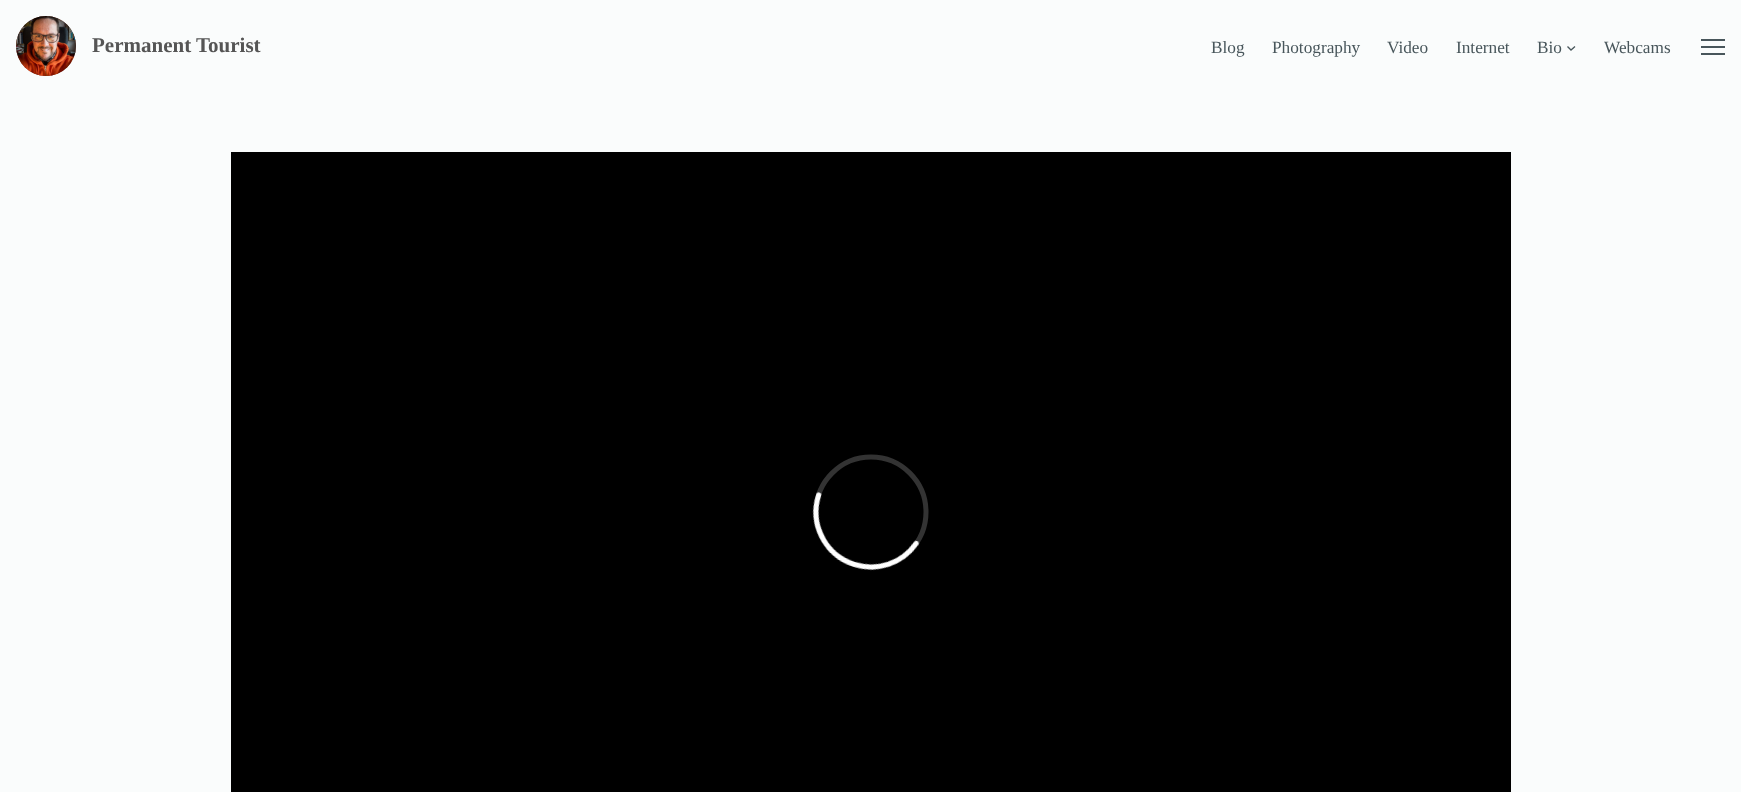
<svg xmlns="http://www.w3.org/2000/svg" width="1741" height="792">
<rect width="100%" height="100%" fill="#fafcfc"/>
<circle cx="46" cy="46" r="30" fill="#7d4534"/>
<image x="16" y="16" width="60" height="60" href="media/1.png"/>
<text x="92" y="52" style="font-family:Liberation Serif;font-size:21px;font-weight:bold;fill:#555">Permanent Tourist</text>
<text x="1211" y="53" style="font-family:Liberation Serif;font-size:17.25px;fill:#48565b">Blog</text>
<text x="1272" y="53" style="font-family:Liberation Serif;font-size:17.25px;fill:#48565b">Photography</text>
<text x="1387" y="53" style="font-family:Liberation Serif;font-size:17.25px;fill:#48565b">Video</text>
<text x="1456" y="53" style="font-family:Liberation Serif;font-size:17.25px;fill:#48565b">Internet</text>
<text x="1537" y="53" style="font-family:Liberation Serif;font-size:17.25px;fill:#48565b">Bio</text>
<path d="M1567.5 46.5l3.5 3.5l4-3.5" fill="none" stroke="#48565b" stroke-width="1.3"/>
<text x="1604" y="53" style="font-family:Liberation Serif;font-size:17.25px;fill:#48565b">Webcams</text>
<rect x="1701" y="39" width="24" height="2" fill="#48565b"/>
<rect x="1701" y="46" width="24" height="2" fill="#48565b"/>
<rect x="1701" y="53" width="24" height="2" fill="#48565b"/>
<image x="231" y="152" width="1280" height="640" href="media/2.png"/>
</svg>
